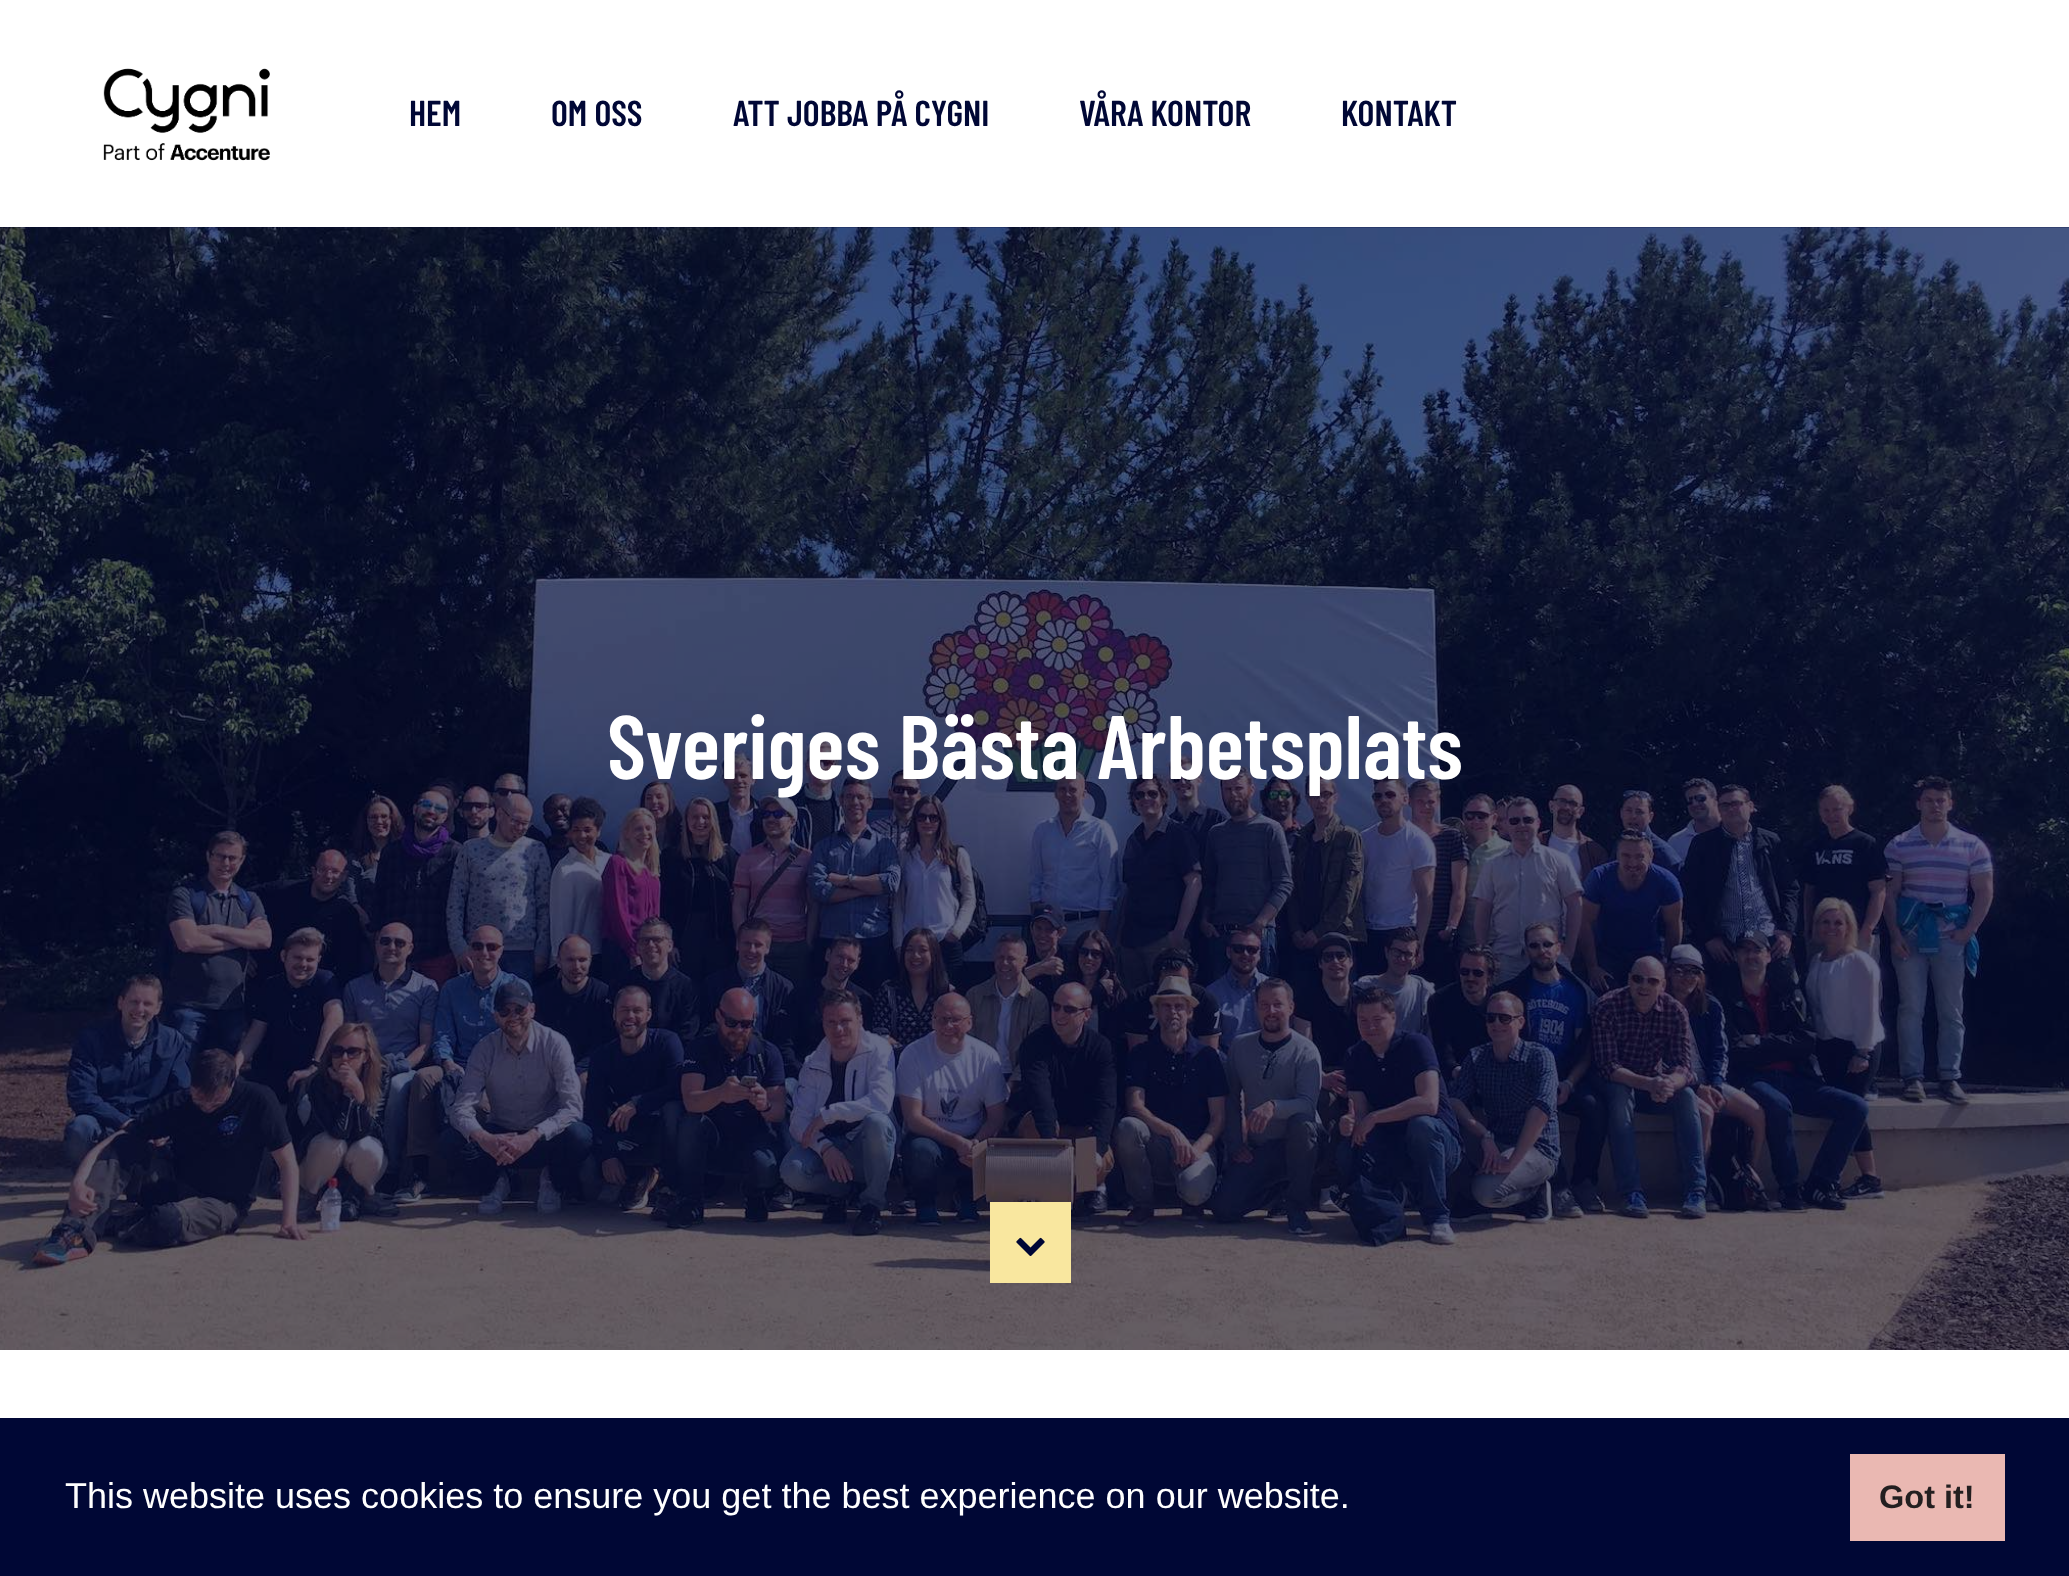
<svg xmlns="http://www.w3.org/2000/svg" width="2069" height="1576">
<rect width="100%" height="100%" fill="#fff"/>
<image x="103" y="68" width="167" height="93" href="media/1.png"/>
<text x="409" y="126" style="font-family:Barlow Condensed;font-size:36px;font-weight:600;fill:#000735">HEM</text>
<text x="551" y="126" style="font-family:Barlow Condensed;font-size:36px;font-weight:600;fill:#000735">OM OSS</text>
<text x="733" y="126" style="font-family:Barlow Condensed;font-size:36px;font-weight:600;fill:#000735">ATT JOBBA PÅ CYGNI</text>
<text x="1079" y="126" style="font-family:Barlow Condensed;font-size:36px;font-weight:600;fill:#000735">VÅRA KONTOR</text>
<text x="1341" y="126" style="font-family:Barlow Condensed;font-size:36px;font-weight:600;fill:#000735">KONTAKT</text>
<rect y="227" width="2069" height="1123" fill="#000735"/>
<image x="0" y="227" width="2069" height="1123" href="media/2.png"/>
<text x="607" y="779" style="font-family:Barlow Condensed;font-size:90px;font-weight:600;fill:#fff">Sveriges Bästa Arbetsplats</text>
<rect x="990" y="1202" width="81" height="81" fill="#f9e79f"/>
<image x="1016" y="1237" width="29" height="19" href="media/3.png"/>
<rect y="1418" width="2069" height="158" fill="#000735"/>
<text x="65" y="1508" style="font-family:Liberation Sans;font-size:36px;fill:#fff">This website uses cookies to ensure you get the best experience on our website.</text>
<rect x="1850" y="1454" width="155" height="87" fill="#eab8b2"/>
<text x="1879" y="1508" style="font-family:Liberation Sans;font-size:32.5px;font-weight:bold;fill:#231f20">Got it!</text>
</svg>
